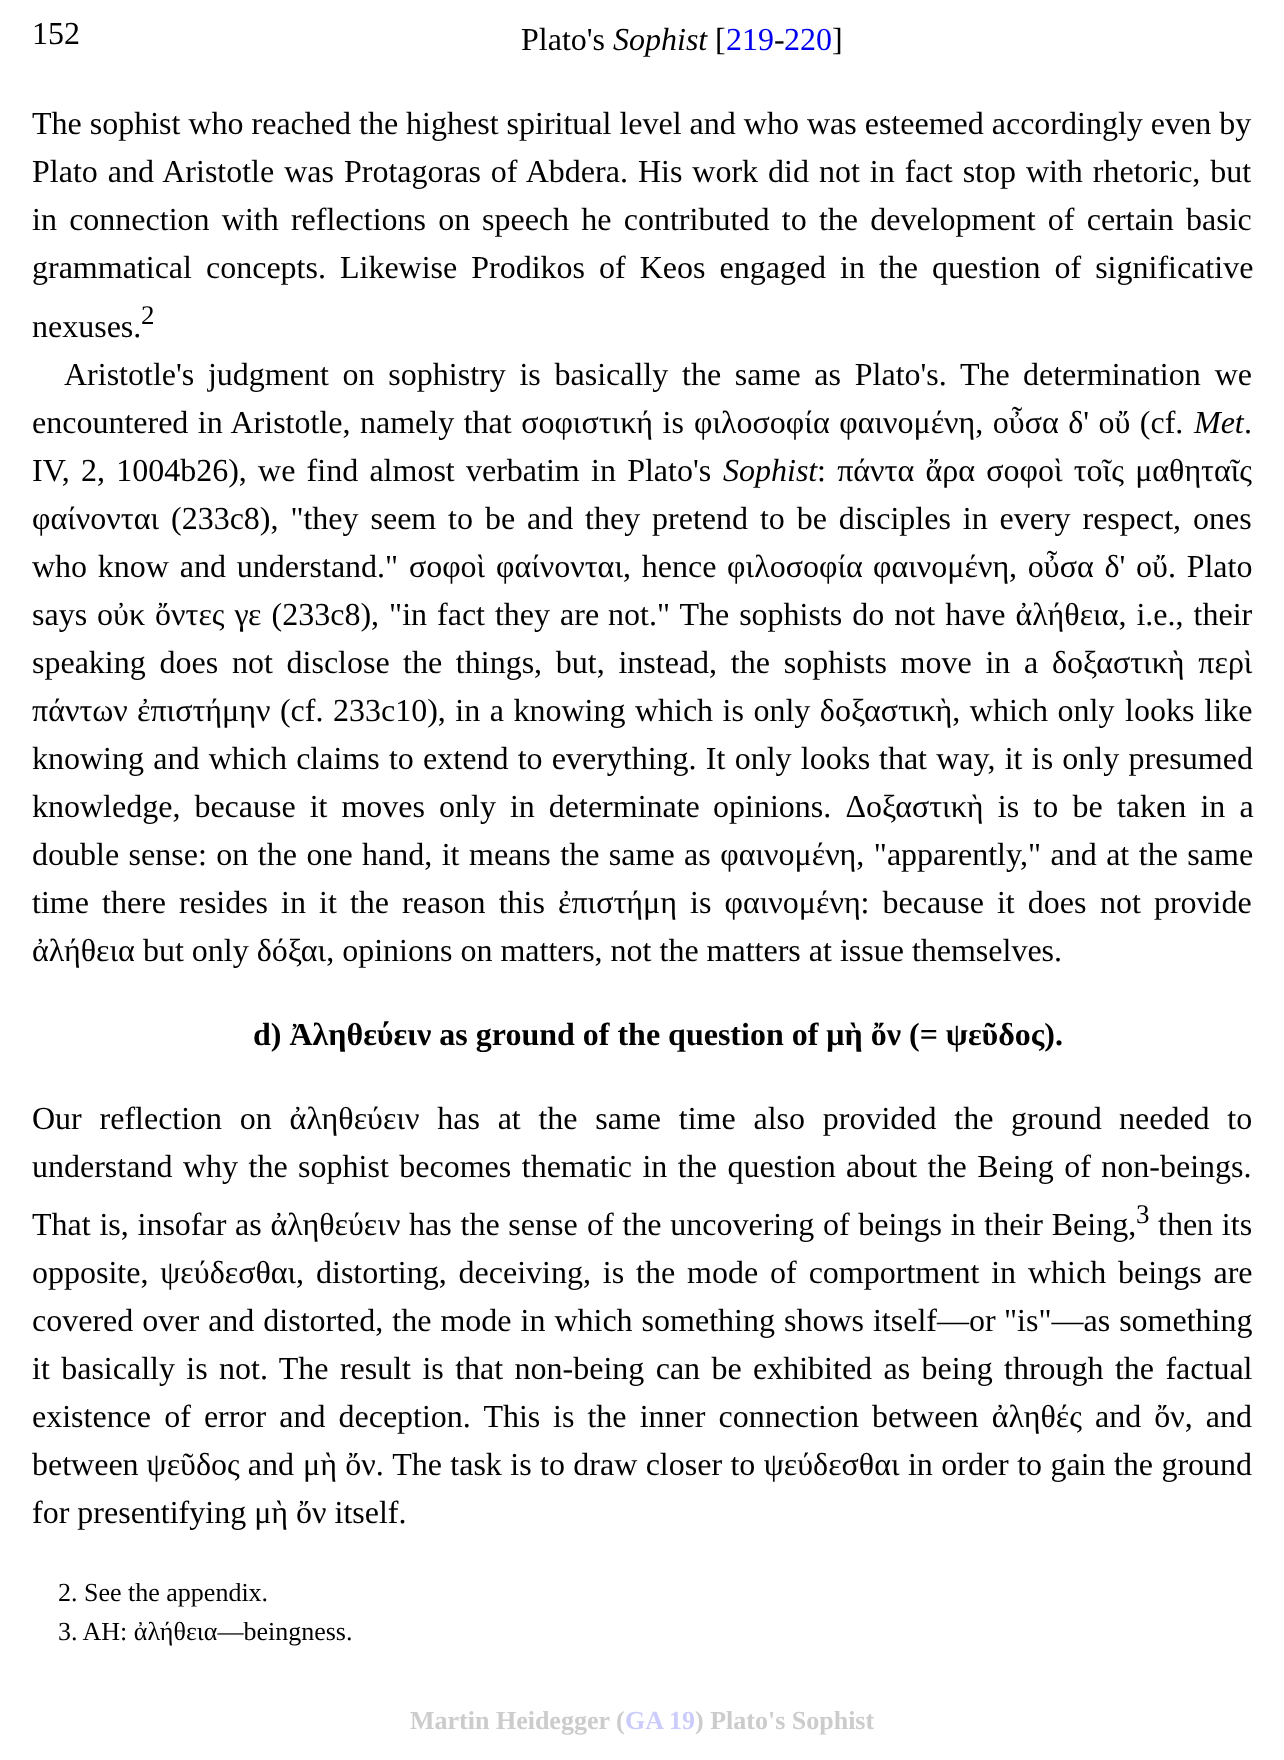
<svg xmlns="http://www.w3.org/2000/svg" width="1284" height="1760">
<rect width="100%" height="100%" fill="#fff"/>
<text x="32" y="44" style="font-family:Liberation Serif;font-size:32px;fill:#000">152</text>
<text x="521" y="50" style="font-family:Liberation Serif;font-size:32px;fill:#000">Plato's</text>
<text x="613" y="50" style="font-family:Liberation Serif;font-size:32px;font-style:italic;fill:#000">Sophist</text>
<text x="715" y="50" style="font-family:Liberation Serif;font-size:32px;fill:#000">[</text>
<text x="726" y="50" style="font-family:Liberation Serif;font-size:32px;fill:#00e">219</text>
<text x="774" y="50" style="font-family:Liberation Serif;font-size:32px;fill:#000">-</text>
<text x="784" y="50" style="font-family:Liberation Serif;font-size:32px;fill:#00e">220</text>
<text x="832" y="50" style="font-family:Liberation Serif;font-size:32px;fill:#000">]</text>
<text x="32" y="134" style="font-family:Liberation Serif;font-size:32px;fill:#000">The sophist who reached the highest spiritual level and who was esteemed accordingly even by</text>
<text x="32" y="182" word-spacing="2" style="font-family:Liberation Serif;font-size:32px;fill:#000">Plato and Aristotle was Protagoras of Abdera. His work</text>
<text x="768" y="182" word-spacing="2" style="font-family:Liberation Serif;font-size:32px;fill:#000">did not in fact stop with rhetoric, but</text>
<text x="32" y="230" word-spacing="4.25" style="font-family:Liberation Serif;font-size:32px;fill:#000">in connection with reflections on</text>
<text x="482" y="230" word-spacing="4.25" style="font-family:Liberation Serif;font-size:32px;fill:#000">speech he contributed to the development of certain basic</text>
<text x="32" y="278" style="font-family:Liberation Serif;font-size:32px;fill:#000">grammatical</text>
<text x="206" y="278" word-spacing="6" style="font-family:Liberation Serif;font-size:32px;fill:#000">concepts. Likewise Prodikos of Keos engaged in the question of significative</text>
<text x="141" y="324" style="font-family:Liberation Serif;font-size:27px;fill:#000">2</text>
<text x="32" y="337" style="font-family:Liberation Serif;font-size:32px;fill:#000">nexuses.</text>
<text x="64" y="385" word-spacing="5.75" style="font-family:Liberation Serif;font-size:32px;fill:#000">Aristotle's judgment on sophistry is basically the same as Plato's. The</text>
<text x="1023" y="385" word-spacing="6" style="font-family:Liberation Serif;font-size:32px;fill:#000">determination we</text>
<text x="32" y="433" word-spacing="1.5" style="font-family:Liberation Serif;font-size:32px;fill:#000">encountered in Aristotle, namely that σοφιστική is</text>
<text x="694" y="433" word-spacing="1.5" style="font-family:Liberation Serif;font-size:32px;fill:#000">φιλοσοφία φαινομένη, οὖσα δ' οὔ (cf.</text>
<text x="1194" y="433" style="font-family:Liberation Serif;font-size:32px;font-style:italic;fill:#000">Met</text>
<text x="1244" y="433" style="font-family:Liberation Serif;font-size:32px;fill:#000">.</text>
<text x="32" y="481" word-spacing="3.25" style="font-family:Liberation Serif;font-size:32px;fill:#000">IV, 2, 1004b26), we find almost</text>
<text x="466" y="481" word-spacing="3.25" style="font-family:Liberation Serif;font-size:32px;fill:#000">verbatim in Plato's</text>
<text x="723" y="481" style="font-family:Liberation Serif;font-size:32px;font-style:italic;fill:#000">Sophist</text>
<text x="817" y="481" word-spacing="3.25" style="font-family:Liberation Serif;font-size:32px;fill:#000">: πάντα ἄρα σοφοὶ τοῖς μαθηταῖς</text>
<text x="32" y="529" style="font-family:Liberation Serif;font-size:32px;fill:#000">φαίνονται</text>
<text x="171" y="529" word-spacing="3.9" style="font-family:Liberation Serif;font-size:32px;fill:#000">(233c8), "they seem to be and they pretend to be disciples in every respect,</text>
<text x="1193" y="529" style="font-family:Liberation Serif;font-size:32px;fill:#000">ones</text>
<text x="32" y="577" word-spacing="2.75" style="font-family:Liberation Serif;font-size:32px;fill:#000">who know and understand." σοφοὶ φαίνονται, hence φιλοσοφία</text>
<text x="873" y="577" word-spacing="2.75" style="font-family:Liberation Serif;font-size:32px;fill:#000">φαινομένη, οὖσα δ' οὔ. Plato</text>
<text x="32" y="625" word-spacing="2" style="font-family:Liberation Serif;font-size:32px;fill:#000">says οὐκ ὄντες γε (233c8), "in fact they are</text>
<text x="608" y="625" word-spacing="2" style="font-family:Liberation Serif;font-size:32px;fill:#000">not." The sophists do not have ἀλήθεια, i.e., their</text>
<text x="32" y="673" word-spacing="5.75" style="font-family:Liberation Serif;font-size:32px;fill:#000">speaking does not disclose</text>
<text x="403" y="673" word-spacing="5.75" style="font-family:Liberation Serif;font-size:32px;fill:#000">the things, but, instead, the sophists move in a δοξαστικὴ περὶ</text>
<text x="32" y="721" style="font-family:Liberation Serif;font-size:32px;fill:#000">πάντων</text>
<text x="137" y="721" word-spacing="1.5" style="font-family:Liberation Serif;font-size:32px;fill:#000">ἐπιστήμην (cf. 233c10), in a knowing which is only δοξαστικὴ, which only</text>
<text x="1125" y="721" word-spacing="2" style="font-family:Liberation Serif;font-size:32px;fill:#000">looks like</text>
<text x="32" y="769" word-spacing="1.25" style="font-family:Liberation Serif;font-size:32px;fill:#000">knowing and which claims to extend to everything. It only looks</text>
<text x="879" y="769" word-spacing="1.25" style="font-family:Liberation Serif;font-size:32px;fill:#000">that way, it is only presumed</text>
<text x="32" y="817" word-spacing="6" style="font-family:Liberation Serif;font-size:32px;fill:#000">knowledge, because it moves only in determinate</text>
<text x="713" y="817" word-spacing="6.25" style="font-family:Liberation Serif;font-size:32px;fill:#000">opinions. Δοξαστικὴ is to be taken in a</text>
<text x="32" y="865" word-spacing="1.5" style="font-family:Liberation Serif;font-size:32px;fill:#000">double sense: on the one</text>
<text x="362" y="865" word-spacing="1.5" style="font-family:Liberation Serif;font-size:32px;fill:#000">hand, it means the same as φαινομένη, "apparently," and at the same</text>
<text x="32" y="913" style="font-family:Liberation Serif;font-size:32px;fill:#000">time</text>
<text x="102" y="913" word-spacing="5.1" style="font-family:Liberation Serif;font-size:32px;fill:#000">there resides in it the reason this ἐπιστήμη is φαινομένη: because it does</text>
<text x="1100" y="913" word-spacing="5" style="font-family:Liberation Serif;font-size:32px;fill:#000">not provide</text>
<text x="32" y="961" style="font-family:Liberation Serif;font-size:32px;fill:#000">ἀλήθεια but only δόξαι, opinions on matters, not the matters at issue themselves.</text>
<text x="253" y="1045" style="font-family:Liberation Serif;font-size:32px;font-weight:bold;fill:#000">d) Ἀληθεύειν as ground of the question of μὴ ὄν (= ψεῦδος).</text>
<text x="32" y="1129" word-spacing="9.75" style="font-family:Liberation Serif;font-size:32px;fill:#000">Our reflection on ἀληθεύειν has at the same time also provided the ground</text>
<text x="1119" y="1129" word-spacing="9.75" style="font-family:Liberation Serif;font-size:32px;fill:#000">needed to</text>
<text x="32" y="1177" word-spacing="2.5" style="font-family:Liberation Serif;font-size:32px;fill:#000">understand why the sophist becomes thematic in the question</text>
<text x="846" y="1177" word-spacing="2.5" style="font-family:Liberation Serif;font-size:32px;fill:#000">about the Being of non-beings.</text>
<text x="32" y="1235" word-spacing="0.75" style="font-family:Liberation Serif;font-size:32px;fill:#000">That is, insofar as ἀληθεύειν has the sense</text>
<text x="587" y="1235" word-spacing="0.75" style="font-family:Liberation Serif;font-size:32px;fill:#000">of the uncovering of beings in their Being,</text>
<text x="1136" y="1223" style="font-family:Liberation Serif;font-size:27px;fill:#000">3</text>
<text x="1158" y="1235" word-spacing="0.75" style="font-family:Liberation Serif;font-size:32px;fill:#000">then its</text>
<text x="32" y="1283" word-spacing="3.9" style="font-family:Liberation Serif;font-size:32px;fill:#000">opposite, ψεύδεσθαι,</text>
<text x="316" y="1283" word-spacing="3.9" style="font-family:Liberation Serif;font-size:32px;fill:#000">distorting, deceiving, is the mode of comportment in which beings are</text>
<text x="32" y="1331" word-spacing="1" style="font-family:Liberation Serif;font-size:32px;fill:#000">covered over and distorted, the mode in which something shows itself—or</text>
<text x="1004" y="1331" word-spacing="1" style="font-family:Liberation Serif;font-size:32px;fill:#000">"is"—as something</text>
<text x="32" y="1379" word-spacing="3.4" style="font-family:Liberation Serif;font-size:32px;fill:#000">it basically is not. The result is that non-being can be</text>
<text x="753" y="1379" word-spacing="3.4" style="font-family:Liberation Serif;font-size:32px;fill:#000">exhibited as being through the factual</text>
<text x="32" y="1427" word-spacing="5.1" style="font-family:Liberation Serif;font-size:32px;fill:#000">existence of error and deception. This</text>
<text x="553" y="1427" word-spacing="5.1" style="font-family:Liberation Serif;font-size:32px;fill:#000">is the inner connection between ἀληθές and ὄν, and</text>
<text x="32" y="1475" style="font-family:Liberation Serif;font-size:32px;fill:#000">between ψεῦδος and</text>
<text x="303" y="1475" word-spacing="0.4" style="font-family:Liberation Serif;font-size:32px;fill:#000">μὴ ὄν. The task is to draw closer to ψεύδεσθαι in order to gain the ground</text>
<text x="32" y="1523" style="font-family:Liberation Serif;font-size:32px;fill:#000">for presentifying μὴ ὄν itself.</text>
<text x="58" y="1601" style="font-family:Liberation Serif;font-size:26px;fill:#000">2. See the appendix.</text>
<text x="58" y="1640" style="font-family:Liberation Serif;font-size:26px;fill:#000">3. AH: ἀλήθεια—beingness.</text>
<text x="410" y="1729" style="font-family:Liberation Serif;font-size:26px;font-weight:bold;fill:#ccc">Martin Heidegger (</text>
<text x="625" y="1729" style="font-family:Liberation Serif;font-size:26px;font-weight:bold;fill:#ccccfc">GA 19</text>
<text x="695" y="1729" style="font-family:Liberation Serif;font-size:26px;font-weight:bold;fill:#ccc">) Plato's Sophist</text>
</svg>
